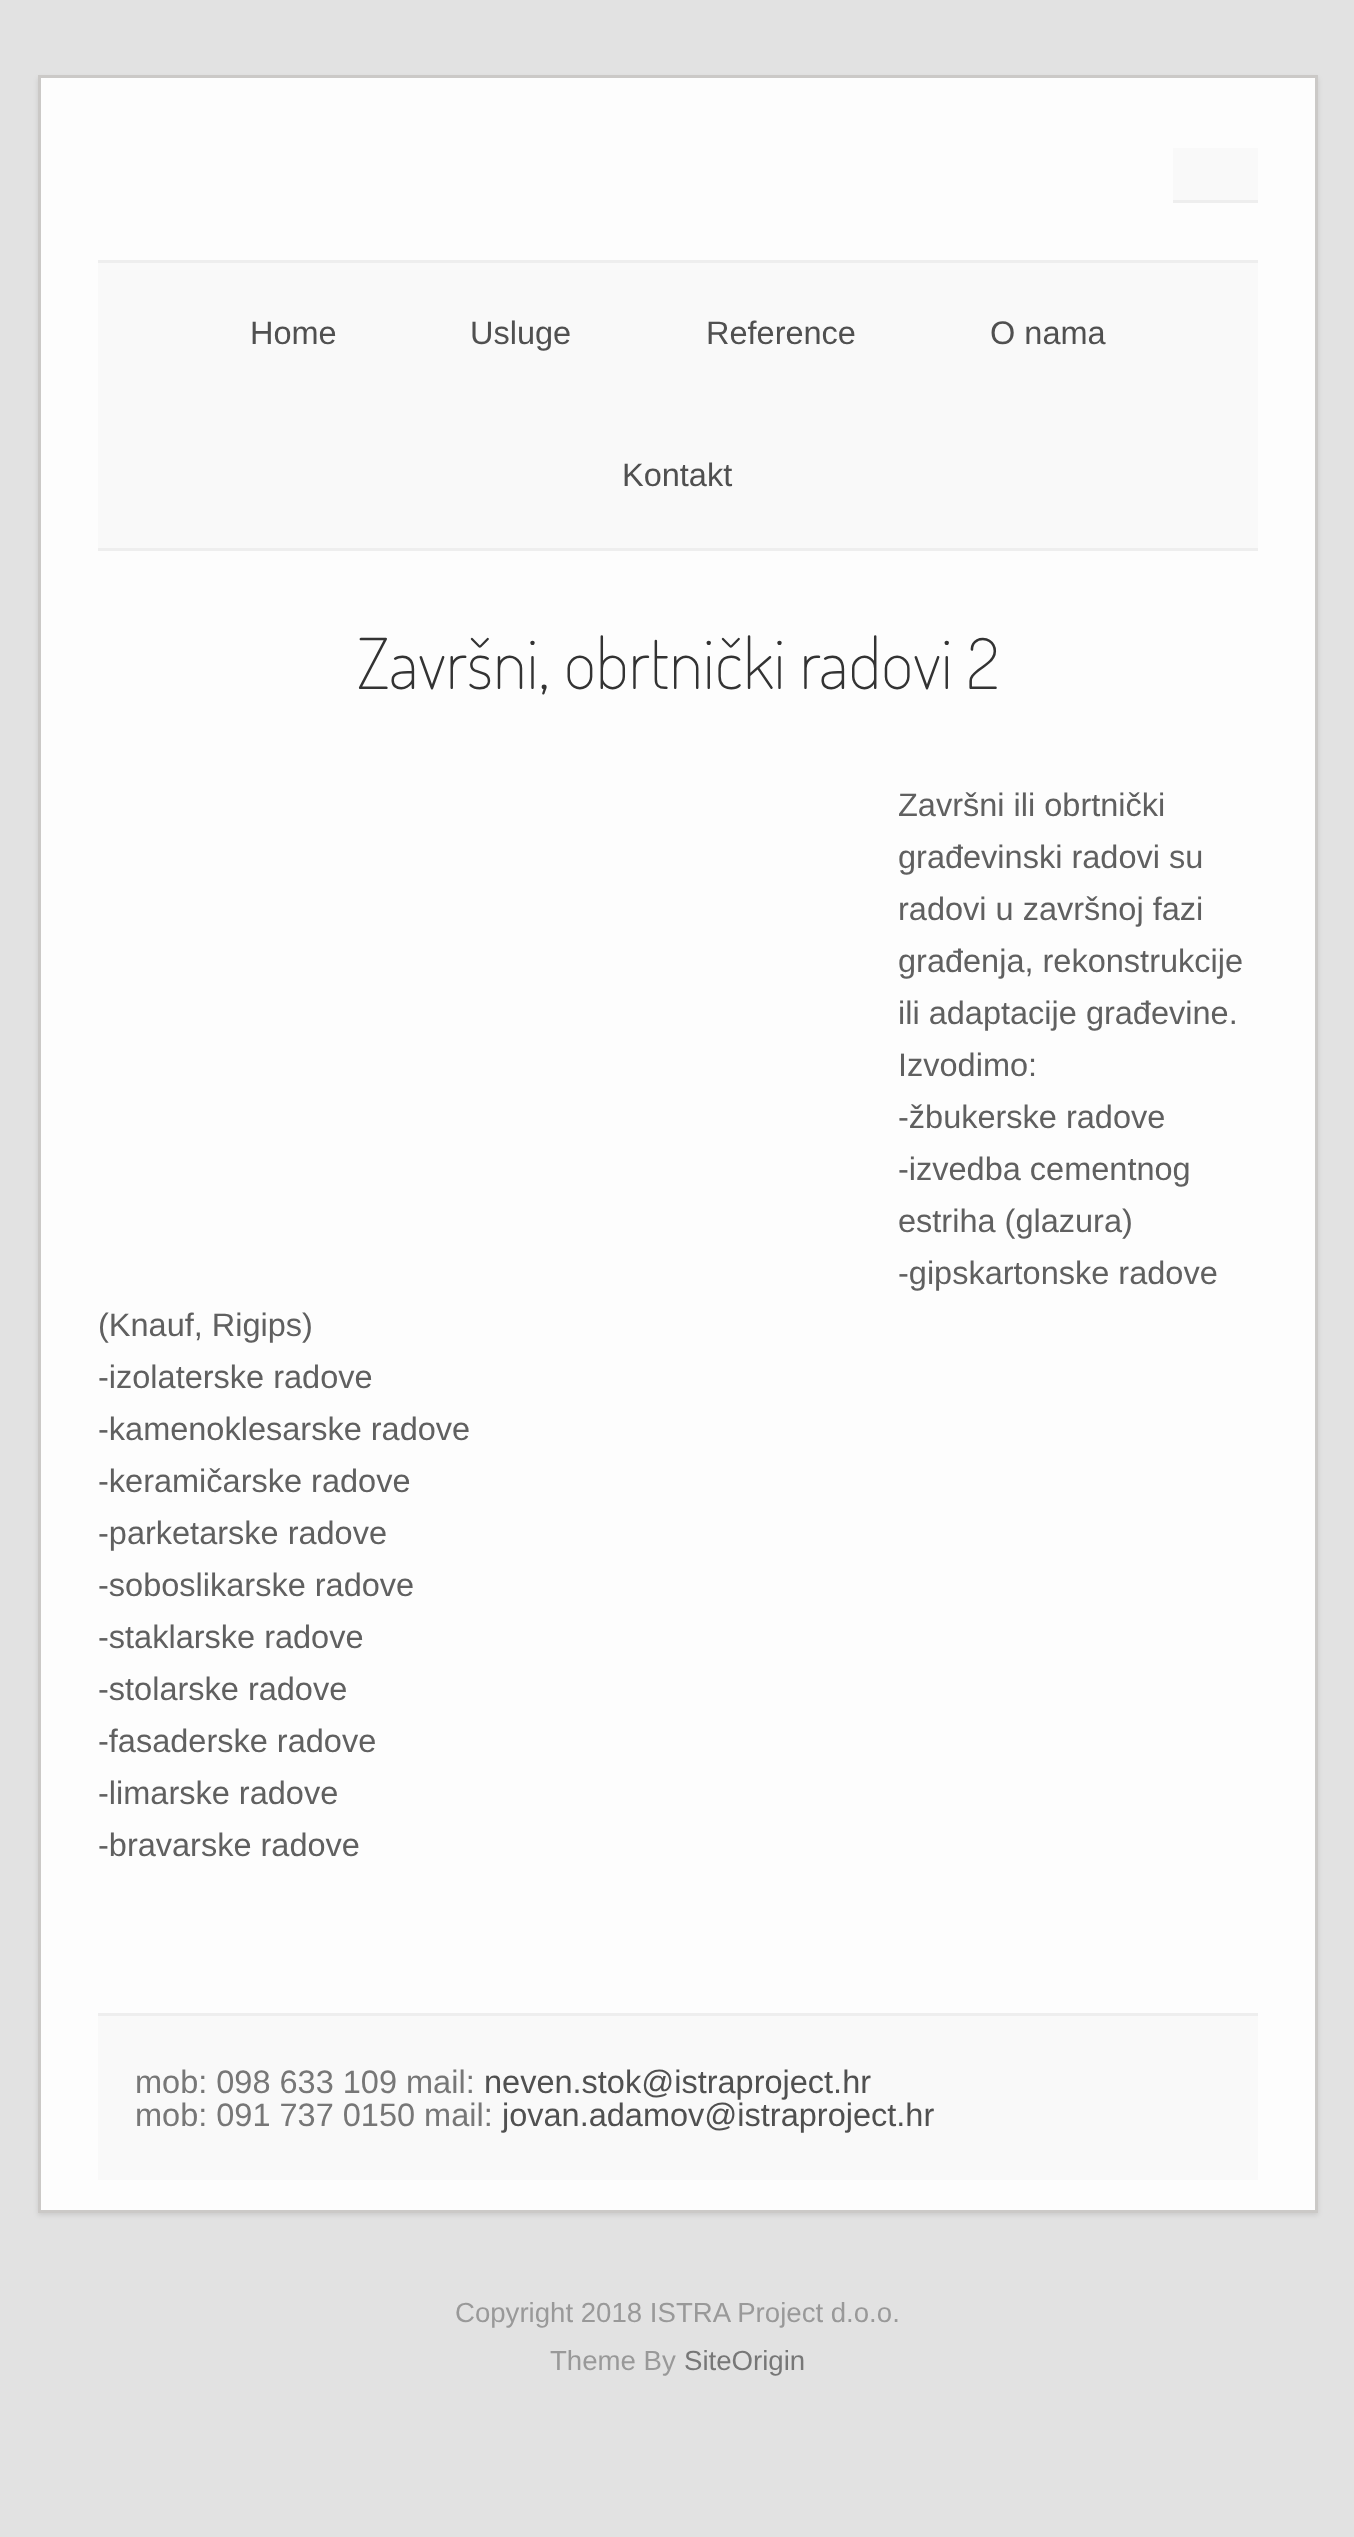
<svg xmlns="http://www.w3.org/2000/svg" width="1354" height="2537">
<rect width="100%" height="100%" fill="#e2e2e2"/>
<rect x="38" y="78" width="1280" height="2137" fill="#0000001a" filter="blur(2.5px)"/>
<rect x="39.5" y="76.5" width="1277" height="2135" fill="#fdfdfd" stroke="#cbc9c7" stroke-width="3"/>
<rect x="1173" y="148" width="85" height="52" fill="#f9f9f9"/>
<rect x="1173" y="200" width="85" height="3" fill="#eee"/>
<rect x="98" y="263" width="1160" height="285" fill="#f9f9f9"/>
<rect x="98" y="260" width="1160" height="3" fill="#eee"/>
<rect x="98" y="548" width="1160" height="3" fill="#eee"/>
<text x="250" y="344" style="font-family:Liberation Sans;font-size:32.5px;fill:#505050">Home</text>
<text x="470" y="344" style="font-family:Liberation Sans;font-size:32.5px;fill:#505050">Usluge</text>
<text x="706" y="344" style="font-family:Liberation Sans;font-size:32.5px;fill:#505050">Reference</text>
<text x="990" y="344" style="font-family:Liberation Sans;font-size:32.5px;fill:#505050">O nama</text>
<text x="622" y="486" style="font-family:Liberation Sans;font-size:32.5px;fill:#505050">Kontakt</text>
<text x="357" y="689" style="font-family:Dosis;font-size:70px;font-weight:200;fill:#333">Završni, obrtnički radovi 2</text>
<text x="898" y="816" style="font-family:Liberation Sans;font-size:32.5px;fill:#606060">Završni ili obrtnički</text>
<text x="898" y="868" style="font-family:Liberation Sans;font-size:32.5px;fill:#606060">građevinski radovi su</text>
<text x="898" y="920" style="font-family:Liberation Sans;font-size:32.5px;fill:#606060">radovi u završnoj fazi</text>
<text x="898" y="972" style="font-family:Liberation Sans;font-size:32.5px;fill:#606060">građenja, rekonstrukcije</text>
<text x="898" y="1024" style="font-family:Liberation Sans;font-size:32.5px;fill:#606060">ili adaptacije građevine.</text>
<text x="898" y="1076" style="font-family:Liberation Sans;font-size:32.5px;fill:#606060">Izvodimo:</text>
<text x="898" y="1128" style="font-family:Liberation Sans;font-size:32.5px;fill:#606060">-žbukerske radove</text>
<text x="898" y="1180" style="font-family:Liberation Sans;font-size:32.5px;fill:#606060">-izvedba cementnog</text>
<text x="898" y="1232" style="font-family:Liberation Sans;font-size:32.5px;fill:#606060">estriha (glazura)</text>
<text x="898" y="1284" style="font-family:Liberation Sans;font-size:32.5px;fill:#606060">-gipskartonske radove</text>
<text x="98" y="1336" style="font-family:Liberation Sans;font-size:32.5px;fill:#606060">(Knauf, Rigips)</text>
<text x="98" y="1388" style="font-family:Liberation Sans;font-size:32.5px;fill:#606060">-izolaterske radove</text>
<text x="98" y="1440" style="font-family:Liberation Sans;font-size:32.5px;fill:#606060">-kamenoklesarske radove</text>
<text x="98" y="1492" style="font-family:Liberation Sans;font-size:32.5px;fill:#606060">-keramičarske radove</text>
<text x="98" y="1544" style="font-family:Liberation Sans;font-size:32.5px;fill:#606060">-parketarske radove</text>
<text x="98" y="1596" style="font-family:Liberation Sans;font-size:32.5px;fill:#606060">-soboslikarske radove</text>
<text x="98" y="1648" style="font-family:Liberation Sans;font-size:32.5px;fill:#606060">-staklarske radove</text>
<text x="98" y="1700" style="font-family:Liberation Sans;font-size:32.5px;fill:#606060">-stolarske radove</text>
<text x="98" y="1752" style="font-family:Liberation Sans;font-size:32.5px;fill:#606060">-fasaderske radove</text>
<text x="98" y="1804" style="font-family:Liberation Sans;font-size:32.5px;fill:#606060">-limarske radove</text>
<text x="98" y="1856" style="font-family:Liberation Sans;font-size:32.5px;fill:#606060">-bravarske radove</text>
<rect x="98" y="2016" width="1160" height="164" fill="#f9f9f9"/>
<rect x="98" y="2013" width="1160" height="3" fill="#eee"/>
<text x="135" y="2093" style="font-family:Liberation Sans;font-size:32.5px;fill:#777">mob: 098 633 109 mail:</text>
<text x="484" y="2093" style="font-family:Liberation Sans;font-size:32.5px;fill:#505050">neven.stok@istraproject.hr</text>
<text x="135" y="2126" style="font-family:Liberation Sans;font-size:32.5px;fill:#777">mob: 091 737 0150 mail:</text>
<text x="502" y="2126" style="font-family:Liberation Sans;font-size:32.5px;fill:#505050">jovan.adamov@istraproject.hr</text>
<text x="455" y="2322" style="font-family:Liberation Sans;font-size:27.6px;fill:#999">Copyright 2018 ISTRA Project d.o.o.</text>
<text x="550" y="2370" style="font-family:Liberation Sans;font-size:27.6px;fill:#999">Theme By</text>
<text x="684" y="2370" style="font-family:Liberation Sans;font-size:27.6px;fill:#777">SiteOrigin</text>
</svg>
